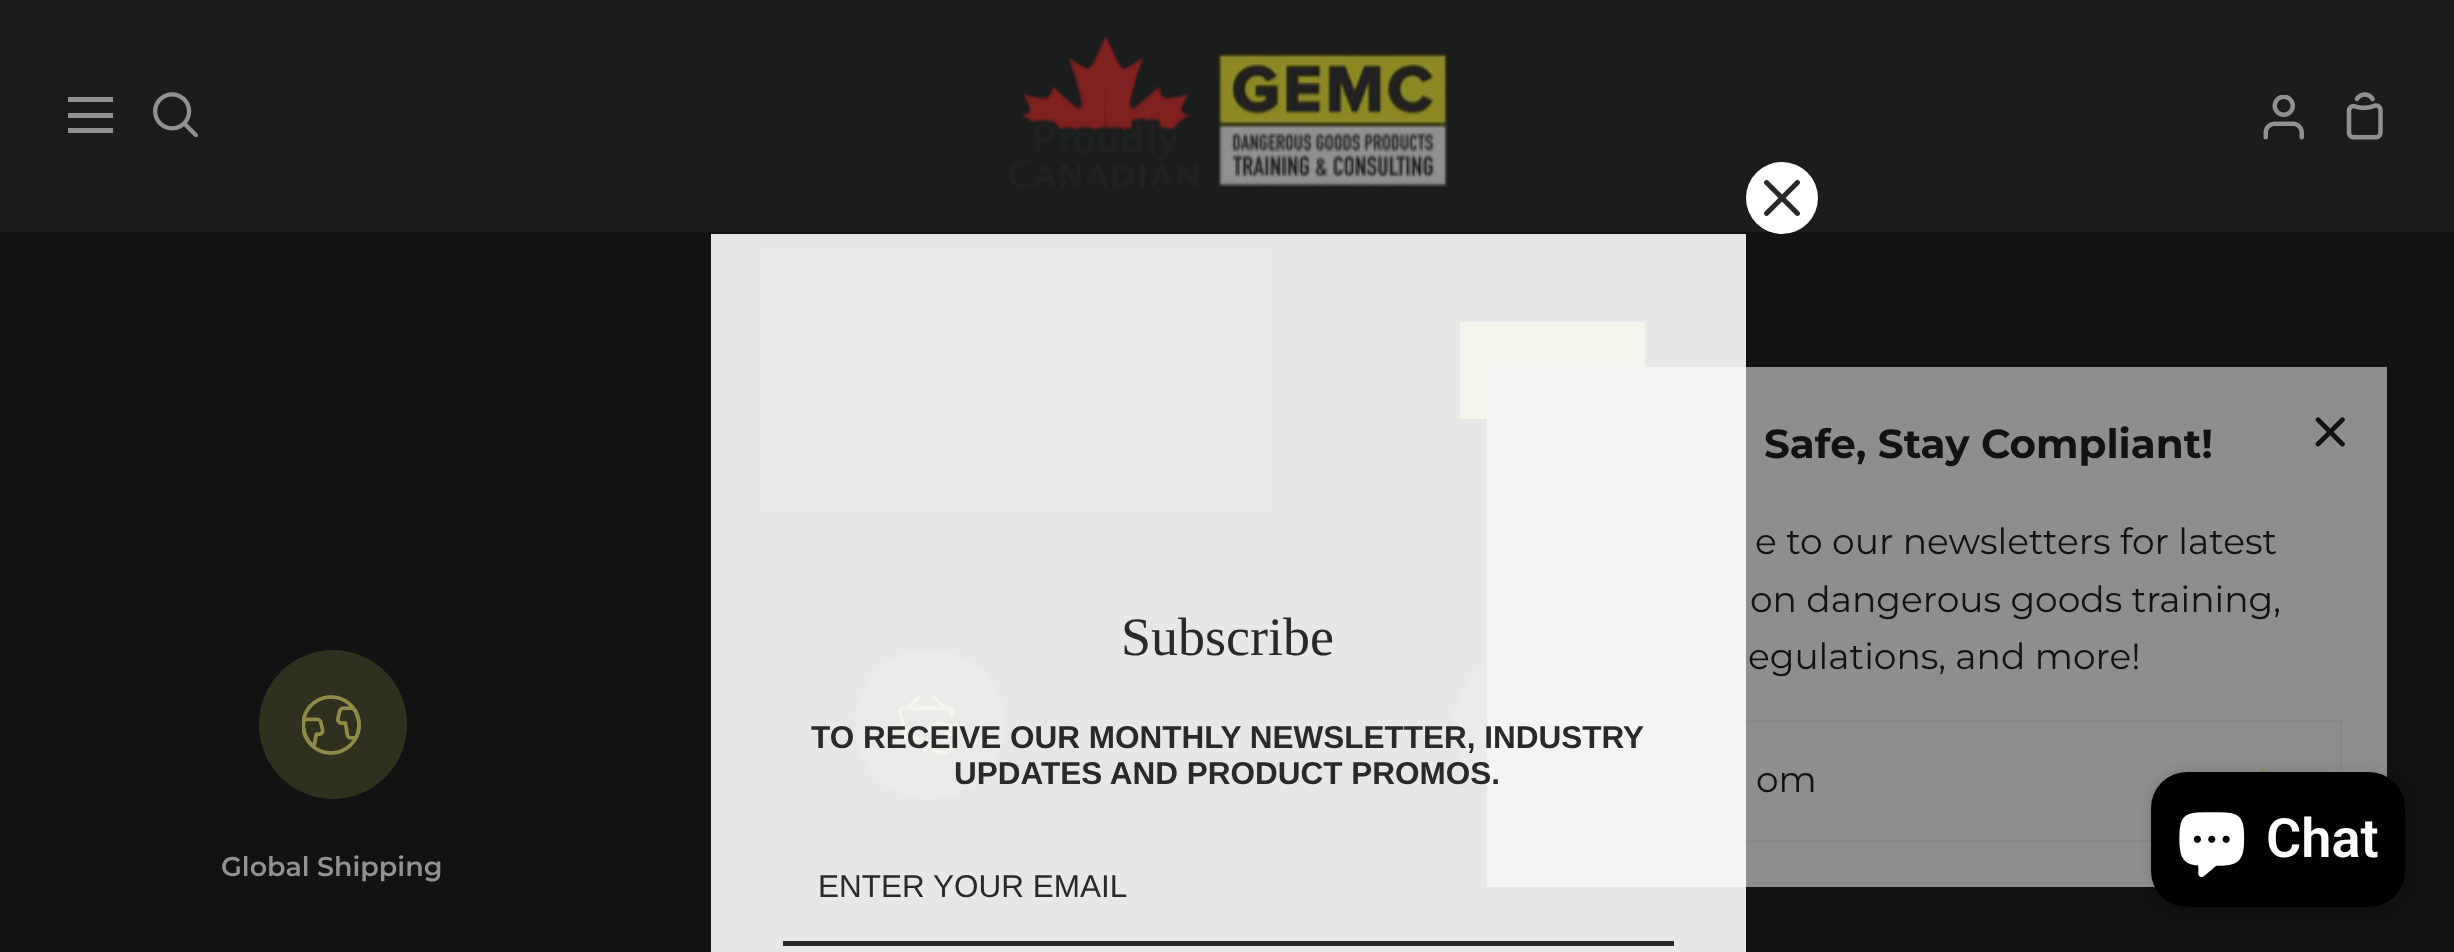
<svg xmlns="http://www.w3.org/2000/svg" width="2454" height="952">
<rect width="100%" height="100%" fill="#111212"/>
<rect width="2454" height="232" fill="#1b1d1d"/>
<rect x="68" y="97" width="45" height="5" fill="#919292"/>
<rect x="68" y="113" width="45" height="5" fill="#919292"/>
<rect x="68" y="128" width="45" height="5" fill="#919292"/>
<image x="153" y="92" width="45" height="45" href="media/1.png"/>
<image x="1008" y="35" width="442" height="153" href="media/2.png"/>
<image x="2263" y="95" width="41" height="45" href="media/3.png"/>
<image x="2346" y="92" width="37" height="48" href="media/4.png"/>
<rect x="1460" y="322" width="185" height="97" fill="#8e8c47"/>
<circle cx="1782" cy="198" r="36" fill="#fff"/>
<image x="1764" y="180" width="36" height="36" href="media/5.png"/>
<rect x="1454" y="650" width="148" height="149" rx="74" fill="#8e8c4740"/>
<rect x="1487" y="367" width="900" height="520" fill="#8d8f8f"/>
<rect x="1533" y="721" width="808" height="120" fill="none" stroke="#888989" stroke-width="2"/>
<image x="898" y="695" width="60" height="60" href="media/8.png"/>
<circle cx="929.5" cy="724.5" r="74.5" fill="#8e8c4740"/>
<rect x="711" y="234" width="1035" height="718" fill="#ffffffe6"/>
<text x="1121" y="655" style="font-family:Liberation Serif;font-size:54px;fill:#292929">Subscribe</text>
<text x="811" y="748" style="font-family:Liberation Sans;font-size:31.5px;font-weight:bold;fill:#292929">TO RECEIVE OUR MONTHLY NEWSLETTER, INDUSTRY</text>
<text x="954" y="784" style="font-family:Liberation Sans;font-size:31.5px;font-weight:bold;fill:#292929">UPDATES AND PRODUCT PROMOS.</text>
<rect x="783" y="941" width="891" height="5" fill="#292929"/>
<text x="818" y="897" style="font-family:Liberation Sans;font-size:31.5px;fill:#292929">ENTER YOUR EMAIL</text>
<text x="1764" y="458" style="font-family:Montserrat;font-size:40.5px;font-weight:bold;fill:#111212">Safe, Stay Compliant!</text>
<image x="2315" y="417" width="30" height="30" href="media/6.png"/>
<text x="1755" y="554" style="font-family:Montserrat;font-size:36px;fill:#111212">e to our newsletters for latest</text>
<text x="1750" y="612" style="font-family:Montserrat;font-size:36px;fill:#111212">on dangerous goods training,</text>
<text x="1748" y="669" style="font-family:Montserrat;font-size:36px;fill:#111212">egulations, and more!</text>
<text x="1756" y="792" style="font-family:Montserrat;font-size:36px;fill:#111212">om</text>
<rect x="2165" y="731" width="166" height="49" fill="#8d8f8c"/>
<path d="M2260 770l2-2l13 12l-13 12l-2-2l9-9h-49v-3h49z" fill="#8e8c47"/>
<rect x="2151" y="772" width="254" height="135" rx="36" fill="#00000026" filter="blur(5.5px)"/>
<rect x="2151" y="772" width="254" height="135" rx="36" fill="#000"/>
<image x="2179" y="812" width="66" height="65" href="media/7.png"/>
<text x="2266" y="857" style="font-family:Roboto;font-size:54px;font-weight:600;fill:#fff">Chat</text>
<image x="302" y="695" width="59" height="60" href="media/9.png"/>
<rect x="259" y="650" width="148" height="149" rx="74" fill="#8e8c4740"/>
<text x="221" y="876" style="font-family:Montserrat;font-size:27px;font-weight:600;fill:#919292">Global Shipping</text>
</svg>
